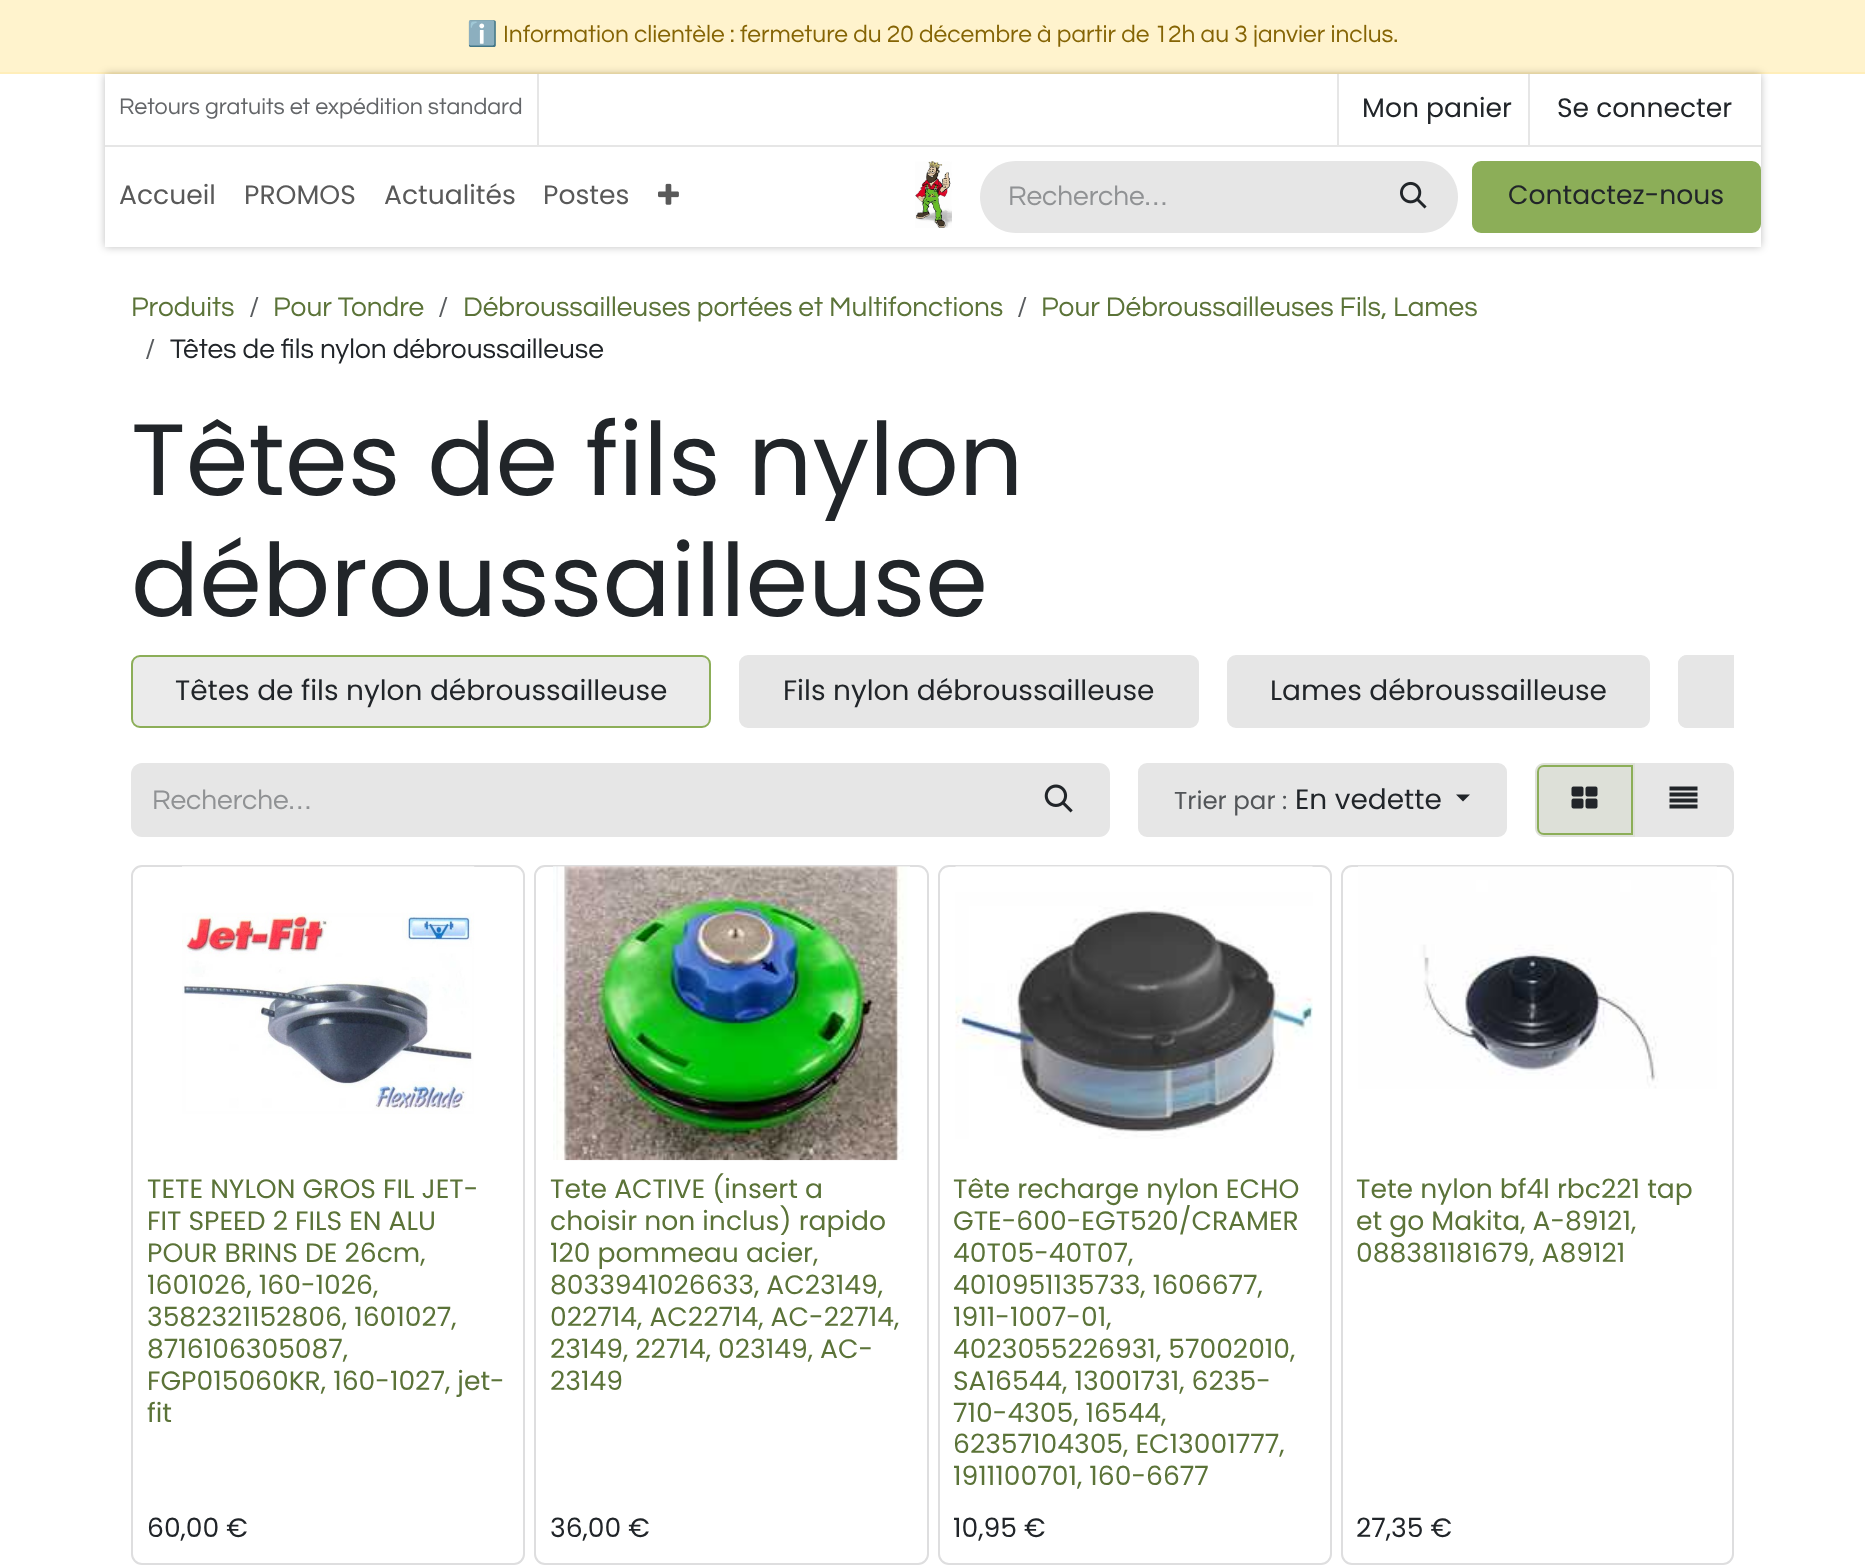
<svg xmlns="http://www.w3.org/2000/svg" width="1865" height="1568">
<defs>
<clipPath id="clip1"><rect x="131" y="655" width="1603" height="80"/></clipPath>
</defs>
<rect width="100%" height="100%" fill="#fff"/>
<rect width="1865" height="72" fill="#fff3cd"/>
<rect y="72" width="1865" height="2" fill="#ffeeba"/>
<text x="467" y="42" style="font-family:Noto Color Emoji;font-size:24.5px;fill:#856404">ℹ️</text>
<text x="503" y="42" style="font-family:Questrial;font-size:24.5px;fill:#856404">Information clientèle : fermeture du 20 décembre à partir de 12h au 3 janvier inclus.</text>
<rect x="105" y="74" width="1656" height="173" fill="#00000040" filter="blur(4.5px)"/>
<rect x="105" y="74" width="1656" height="173" fill="#fff"/>
<rect x="105" y="145" width="1656" height="2" fill="#e6e6e6"/>
<rect x="537" y="74" width="2" height="71" fill="#e6e6e6"/>
<text x="119" y="114" style="font-family:Questrial;font-size:23.25px;fill:#646669">Retours gratuits et expédition standard</text>
<rect x="1337" y="74" width="2" height="71" fill="#e6e6e6"/>
<text x="1362" y="117" style="font-family:Poppins;font-size:26.6px;fill:#212529">Mon panier</text>
<rect x="1528" y="74" width="2" height="71" fill="#e6e6e6"/>
<text x="1557" y="117" style="font-family:Poppins;font-size:26.6px;fill:#212529">Se connecter</text>
<text x="119" y="204" style="font-family:Poppins;font-size:26.6px;fill:#595959">Accueil</text>
<text x="244" y="204" style="font-family:Poppins;font-size:26.6px;fill:#595959">PROMOS</text>
<text x="384" y="204" style="font-family:Poppins;font-size:26.6px;fill:#595959">Actualités</text>
<text x="543" y="204" style="font-family:Poppins;font-size:26.6px;fill:#595959">Postes</text>
<image x="658" y="183" width="21" height="22" href="media/1.png"/>
<image x="915" y="161" width="37" height="67" href="media/2.png"/>
<path d="M1016 161h349v72h-349c-20 0-36-16-36-36c0-20 16-36 36-36z" fill="#e6e6e6"/>
<text x="1008" y="205" style="font-family:Questrial;font-size:28px;fill:#909294">Recherche…</text>
<path d="M1363 161h59c20 0 36 16 36 36c0 20-16 36-36 36h-59z" fill="#e6e6e6"/>
<image x="1400" y="181" width="27" height="28" href="media/3.png"/>
<rect x="1473" y="162" width="287" height="70" rx="8" fill="#8cae58" stroke="#8cae58" stroke-width="2"/>
<text x="1508" y="204" style="font-family:Poppins;font-size:26.6px;fill:#212529">Contactez-nous</text>
<text x="131" y="316" style="font-family:Questrial;font-size:28px;fill:#5b7338">Produits</text>
<text x="249" y="316" style="font-family:Questrial;font-size:28px;fill:#595c5f">/</text>
<text x="273" y="316" style="font-family:Questrial;font-size:28px;fill:#5b7338">Pour Tondre</text>
<text x="438" y="316" style="font-family:Questrial;font-size:28px;fill:#595c5f">/</text>
<text x="463" y="316" style="font-family:Questrial;font-size:28px;fill:#5b7338">Débroussailleuses portées et Multifonctions</text>
<text x="1017" y="316" style="font-family:Questrial;font-size:28px;fill:#595c5f">/</text>
<text x="1041" y="316" style="font-family:Questrial;font-size:28px;fill:#5b7338">Pour Débroussailleuses Fils, Lames</text>
<text x="145" y="358" style="font-family:Questrial;font-size:28px;fill:#595c5f">/</text>
<text x="170" y="358" style="font-family:Questrial;font-size:28px;fill:#212529">Têtes de fils nylon débroussailleuse</text>
<text x="131" y="495" style="font-family:Poppins;font-size:101px;fill:#212529">Têtes de fils nylon</text>
<text x="131" y="616" style="font-family:Poppins;font-size:101px;fill:#212529">débroussailleuse</text>
<rect x="132" y="656" width="578" height="71" rx="8" fill="#ebebeb" stroke="#8cae58" stroke-width="2"/>
<text x="175" y="700" style="font-family:Poppins;font-size:28px;fill:#212529">Têtes de fils nylon débroussailleuse</text>
<rect x="740" y="656" width="458" height="71" rx="8" fill="#e6e6e6" stroke="#e6e6e6" stroke-width="2"/>
<text x="783" y="700" style="font-family:Poppins;font-size:28px;fill:#212529">Fils nylon débroussailleuse</text>
<rect x="1228" y="656" width="421" height="71" rx="8" fill="#e6e6e6" stroke="#e6e6e6" stroke-width="2"/>
<text x="1270" y="700" style="font-family:Poppins;font-size:28px;fill:#212529">Lames débroussailleuse</text>
<path d="M1687 655h47v73h-47c-5 0-9-4-9-9v-55c0-5 4-9 9-9z" fill="#e6e6e6"/>
<g clip-path="url(#clip1)">
<rect x="1679" y="656" width="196" height="71" rx="8" fill="none" stroke="#e6e6e6" stroke-width="2"/>
</g>
<path d="M142 763h868v74h-868c-6 0-11-5-11-11v-52c0-6 5-11 11-11z" fill="#e6e6e6"/>
<text x="152" y="809" style="font-family:Questrial;font-size:28px;fill:#909294">Recherche…</text>
<path d="M1009 764h90c5.5 0 10 4.5 10 10v52c0 5.5-4.5 10-10 10h-90z" fill="#e6e6e6" stroke="#e6e6e6" stroke-width="2"/>
<image x="1044" y="784" width="29" height="29" href="media/4.png"/>
<rect x="1139" y="764" width="367" height="72" rx="8" fill="#e6e6e6" stroke="#e6e6e6" stroke-width="2"/>
<text x="1174" y="809" style="font-family:Poppins;font-size:24.5px;fill:#525558">Trier par :</text>
<text x="1295" y="809" style="font-family:Poppins;font-size:28px;fill:#212529">En vedette</text>
<path d="M1456 794.5h14l-7 7z" fill="#212529"/>
<path d="M1634 764h91c4.5 0 8 3.5 8 8v56c0 4.5-3.5 8-8 8h-91z" fill="#e6e6e6" stroke="#e6e6e6" stroke-width="2"/>
<path d="M1544 763h91v74h-91c-5 0-9-4-9-9v-56c0-5 4-9 9-9z" fill="#dde0d8"/>
<path d="M1544 766h88v68h-88c-3.5 0-6-2.5-6-6v-56c0-3.5 2.5-6 6-6z" fill="none" stroke="#8cae58" stroke-width="2"/>
<image x="1571" y="786" width="27" height="23" href="media/5.png"/>
<image x="1669" y="786" width="29" height="23" href="media/6.png"/>
<rect x="132" y="866" width="392" height="698" rx="10" fill="none" stroke="#dededf" stroke-width="2"/>
<image x="182" y="866" width="293" height="248" href="media/7.png"/>
<text x="147" y="1198" style="font-family:Poppins;font-size:26.6px;fill:#5b7338">TETE NYLON GROS FIL JET-</text>
<text x="147" y="1230" style="font-family:Poppins;font-size:26.6px;fill:#5b7338">FIT SPEED 2 FILS EN ALU</text>
<text x="147" y="1262" style="font-family:Poppins;font-size:26.6px;fill:#5b7338">POUR BRINS DE 26cm,</text>
<text x="147" y="1294" style="font-family:Poppins;font-size:26.6px;fill:#5b7338">1601026, 160-1026,</text>
<text x="147" y="1326" style="font-family:Poppins;font-size:26.6px;fill:#5b7338">3582321152806, 1601027,</text>
<text x="147" y="1358" style="font-family:Poppins;font-size:26.6px;fill:#5b7338">8716106305087,</text>
<text x="147" y="1390" style="font-family:Poppins;font-size:26.6px;fill:#5b7338">FGP015060KR, 160-1027, jet-</text>
<text x="147" y="1422" style="font-family:Poppins;font-size:26.6px;fill:#5b7338">fit</text>
<text x="147" y="1537" style="font-family:Poppins;font-size:26.6px;fill:#212529">60,00 €</text>
<rect x="535" y="866" width="393" height="698" rx="10" fill="none" stroke="#dededf" stroke-width="2"/>
<image x="553" y="866" width="357" height="295" href="media/8.png"/>
<text x="550" y="1198" style="font-family:Poppins;font-size:26.6px;fill:#5b7338">Tete ACTIVE (insert a</text>
<text x="550" y="1230" style="font-family:Poppins;font-size:26.6px;fill:#5b7338">choisir non inclus) rapido</text>
<text x="550" y="1262" style="font-family:Poppins;font-size:26.6px;fill:#5b7338">120 pommeau acier,</text>
<text x="550" y="1294" style="font-family:Poppins;font-size:26.6px;fill:#5b7338">8033941026633, AC23149,</text>
<text x="550" y="1326" style="font-family:Poppins;font-size:26.6px;fill:#5b7338">022714, AC22714, AC-22714,</text>
<text x="550" y="1358" style="font-family:Poppins;font-size:26.6px;fill:#5b7338">23149, 22714, 023149, AC-</text>
<text x="550" y="1390" style="font-family:Poppins;font-size:26.6px;fill:#5b7338">23149</text>
<text x="550" y="1537" style="font-family:Poppins;font-size:26.6px;fill:#212529">36,00 €</text>
<rect x="939" y="866" width="392" height="698" rx="10" fill="none" stroke="#dededf" stroke-width="2"/>
<image x="955" y="866" width="358" height="273" href="media/9.png"/>
<text x="953" y="1198" style="font-family:Poppins;font-size:26.6px;fill:#5b7338">Tête recharge nylon ECHO</text>
<text x="953" y="1230" style="font-family:Poppins;font-size:26.6px;fill:#5b7338">GTE-600-EGT520/CRAMER</text>
<text x="953" y="1262" style="font-family:Poppins;font-size:26.6px;fill:#5b7338">40T05-40T07,</text>
<text x="953" y="1294" style="font-family:Poppins;font-size:26.6px;fill:#5b7338">4010951135733, 1606677,</text>
<text x="953" y="1326" style="font-family:Poppins;font-size:26.6px;fill:#5b7338">1911-1007-01,</text>
<text x="953" y="1358" style="font-family:Poppins;font-size:26.6px;fill:#5b7338">4023055226931, 57002010,</text>
<text x="953" y="1390" style="font-family:Poppins;font-size:26.6px;fill:#5b7338">SA16544, 13001731, 6235-</text>
<text x="953" y="1422" style="font-family:Poppins;font-size:26.6px;fill:#5b7338">710-4305, 16544,</text>
<text x="953" y="1453" style="font-family:Poppins;font-size:26.6px;fill:#5b7338">62357104305, EC13001777,</text>
<text x="953" y="1485" style="font-family:Poppins;font-size:26.6px;fill:#5b7338">1911100701, 160-6677</text>
<text x="953" y="1537" style="font-family:Poppins;font-size:26.6px;fill:#212529">10,95 €</text>
<rect x="1342" y="866" width="391" height="698" rx="10" fill="none" stroke="#dededf" stroke-width="2"/>
<image x="1358" y="866" width="359" height="223" href="media/10.png"/>
<text x="1356" y="1198" style="font-family:Poppins;font-size:26.6px;fill:#5b7338">Tete nylon bf4l rbc221 tap</text>
<text x="1356" y="1230" style="font-family:Poppins;font-size:26.6px;fill:#5b7338">et go Makita, A-89121,</text>
<text x="1356" y="1262" style="font-family:Poppins;font-size:26.6px;fill:#5b7338">088381181679, A89121</text>
<text x="1356" y="1537" style="font-family:Poppins;font-size:26.6px;fill:#212529">27,35 €</text>
</svg>
